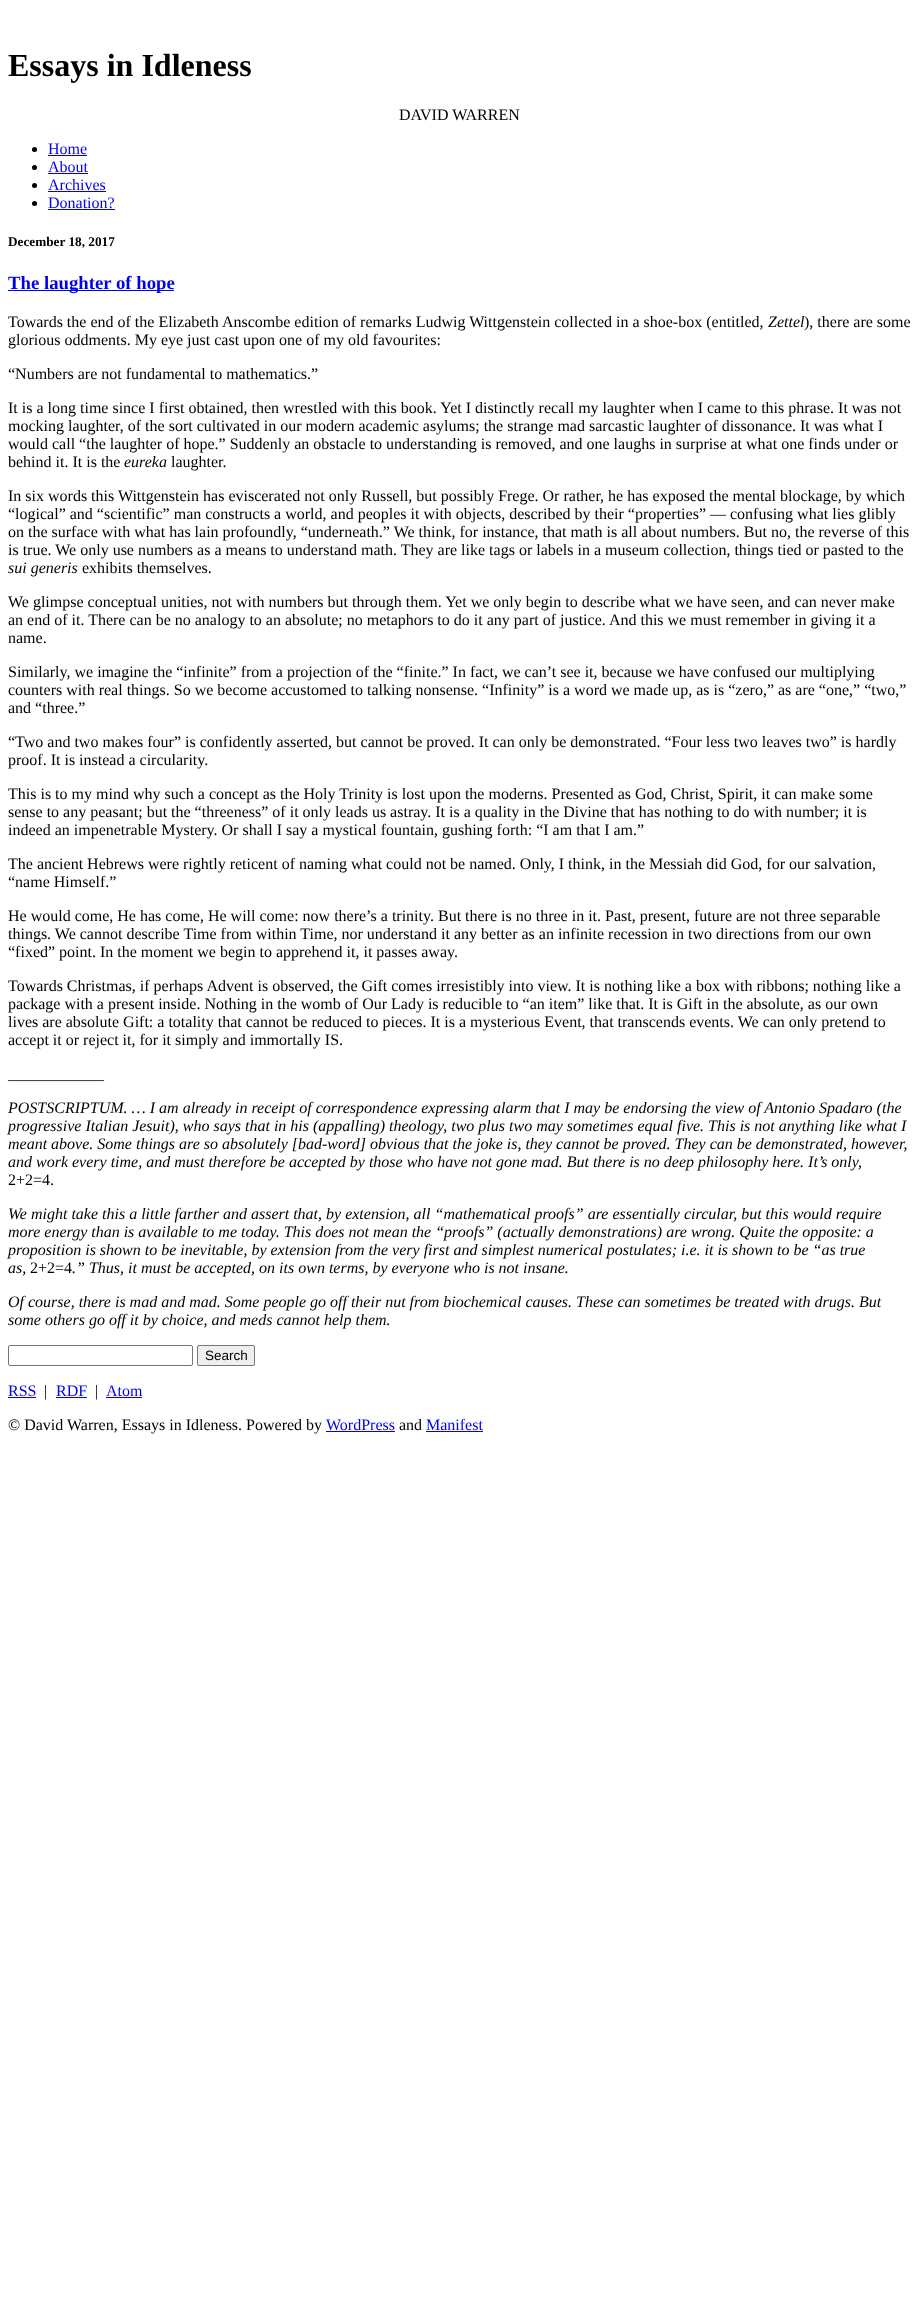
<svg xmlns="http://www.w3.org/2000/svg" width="919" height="2323">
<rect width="100%" height="100%" fill="#fff"/>
<text x="8" y="76" style="font-family:Liberation Serif;font-size:32px;font-weight:bold;fill:#000">Essays in Idleness</text>
<text x="399" y="120" style="font-family:Liberation Serif;font-size:16px;fill:#000">DAVID WARREN</text>
<circle cx="34.5" cy="149.5" r="2.5" fill="#000"/>
<text x="48" y="154" style="font-family:Liberation Serif;font-size:16px;fill:#00e">Home</text>
<rect x="48" y="155" width="39" height="1" fill="#00e"/>
<circle cx="34.5" cy="167.5" r="2.5" fill="#000"/>
<text x="48" y="172" style="font-family:Liberation Serif;font-size:16px;fill:#00e">About</text>
<rect x="48" y="173" width="40" height="1" fill="#00e"/>
<circle cx="34.5" cy="185.5" r="2.5" fill="#000"/>
<text x="48" y="190" style="font-family:Liberation Serif;font-size:16px;fill:#00e">Archives</text>
<rect x="48" y="191" width="58" height="1" fill="#00e"/>
<circle cx="34.5" cy="203.5" r="2.5" fill="#000"/>
<text x="48" y="208" style="font-family:Liberation Serif;font-size:16px;fill:#00e">Donation?</text>
<rect x="48" y="209" width="67" height="1" fill="#00e"/>
<text x="8" y="246" style="font-family:Liberation Serif;font-size:13.25px;font-weight:bold;fill:#000">December 18, 2017</text>
<rect x="8" y="290" width="166" height="1" fill="#00e"/>
<text x="8" y="289" style="font-family:Liberation Serif;font-size:18.75px;font-weight:bold;fill:#00e">The laughter of hope</text>
<text x="8" y="327" style="font-family:Liberation Serif;font-size:16px;fill:#000">Towards the end of the Elizabeth Anscombe edition of remarks Ludwig Wittgenstein collected in a shoe-box (entitled,</text>
<text x="768" y="327" style="font-family:Liberation Serif;font-size:16px;font-style:italic;fill:#000">Zettel</text>
<text x="804" y="327" style="font-family:Liberation Serif;font-size:16px;fill:#000">), there are some</text>
<text x="8" y="345" style="font-family:Liberation Serif;font-size:16px;fill:#000">glorious oddments. My eye just cast upon one of my old favourites:</text>
<text x="8" y="379" style="font-family:Liberation Serif;font-size:16px;fill:#000">“Numbers are not fundamental to mathematics.”</text>
<text x="8" y="413" style="font-family:Liberation Serif;font-size:16px;fill:#000">It is a long time since I first obtained, then wrestled with this book. Yet I distinctly recall my laughter when I came to this phrase. It was not</text>
<text x="8" y="431" style="font-family:Liberation Serif;font-size:16px;fill:#000">mocking laughter, of the sort cultivated in our modern academic asylums; the strange mad sarcastic laughter of dissonance. It was what I</text>
<text x="8" y="449" style="font-family:Liberation Serif;font-size:16px;fill:#000">would call “the laughter of hope.” Suddenly an obstacle to understanding is removed, and one laughs in surprise at what one finds under or</text>
<text x="8" y="467" style="font-family:Liberation Serif;font-size:16px;fill:#000">behind it. It is the</text>
<text x="124" y="467" style="font-family:Liberation Serif;font-size:16px;font-style:italic;fill:#000">eureka</text>
<text x="171" y="467" style="font-family:Liberation Serif;font-size:16px;fill:#000">laughter.</text>
<text x="8" y="501" style="font-family:Liberation Serif;font-size:16px;fill:#000">In six words this Wittgenstein has eviscerated not only Russell, but possibly Frege. Or rather, he has exposed the mental blockage, by which</text>
<text x="8" y="519" style="font-family:Liberation Serif;font-size:16px;fill:#000">“logical” and “scientific” man constructs a world, and peoples it with objects, described by their “properties” — confusing what lies glibly</text>
<text x="8" y="537" style="font-family:Liberation Serif;font-size:16px;fill:#000">on the surface with what has lain profoundly, “underneath.” We think, for instance, that math is all about numbers. But no, the reverse of this</text>
<text x="8" y="555" style="font-family:Liberation Serif;font-size:16px;fill:#000">is true. We only use numbers as a means to understand math. They are like tags or labels in a museum collection, things tied or pasted to the</text>
<text x="8" y="573" style="font-family:Liberation Serif;font-size:16px;font-style:italic;fill:#000">sui generis</text>
<text x="82" y="573" style="font-family:Liberation Serif;font-size:16px;fill:#000">exhibits themselves.</text>
<text x="8" y="607" style="font-family:Liberation Serif;font-size:16px;fill:#000">We glimpse conceptual unities, not with numbers but through them. Yet we only begin to describe what we have seen, and can never make</text>
<text x="8" y="625" style="font-family:Liberation Serif;font-size:16px;fill:#000">an end of it. There can be no analogy to an absolute; no metaphors to do it any part of justice. And this we must remember in giving it a</text>
<text x="8" y="643" style="font-family:Liberation Serif;font-size:16px;fill:#000">name.</text>
<text x="8" y="677" style="font-family:Liberation Serif;font-size:16px;fill:#000">Similarly, we imagine the “infinite” from a projection of the “finite.” In fact, we can’t see it, because we have confused our multiplying</text>
<text x="8" y="695" style="font-family:Liberation Serif;font-size:16px;fill:#000">counters with real things. So we become accustomed to talking nonsense. “Infinity” is a word we made up, as is “zero,” as are “one,” “two,”</text>
<text x="8" y="713" style="font-family:Liberation Serif;font-size:16px;fill:#000">and “three.”</text>
<text x="8" y="747" style="font-family:Liberation Serif;font-size:16px;fill:#000">“Two and two makes four” is confidently asserted, but cannot be proved. It can only be demonstrated. “Four less two leaves two” is hardly</text>
<text x="8" y="765" style="font-family:Liberation Serif;font-size:16px;fill:#000">proof. It is instead a circularity.</text>
<text x="8" y="799" style="font-family:Liberation Serif;font-size:16px;fill:#000">This is to my mind why such a concept as the Holy Trinity is lost upon the moderns. Presented as God, Christ, Spirit, it can make some</text>
<text x="8" y="817" style="font-family:Liberation Serif;font-size:16px;fill:#000">sense to any peasant; but the “threeness” of it only leads us astray. It is a quality in the Divine that has nothing to do with number; it is</text>
<text x="8" y="835" style="font-family:Liberation Serif;font-size:16px;fill:#000">indeed an impenetrable Mystery. Or shall I say a mystical fountain, gushing forth: “I am that I am.”</text>
<text x="8" y="869" style="font-family:Liberation Serif;font-size:16px;fill:#000">The ancient Hebrews were rightly reticent of naming what could not be named. Only, I think, in the Messiah did God, for our salvation,</text>
<text x="8" y="887" style="font-family:Liberation Serif;font-size:16px;fill:#000">“name Himself.”</text>
<text x="8" y="921" style="font-family:Liberation Serif;font-size:16px;fill:#000">He would come, He has come, He will come: now there’s a trinity. But there is no three in it. Past, present, future are not three separable</text>
<text x="8" y="939" style="font-family:Liberation Serif;font-size:16px;fill:#000">things. We cannot describe Time from within Time, nor understand it any better as an infinite recession in two directions from our own</text>
<text x="8" y="957" style="font-family:Liberation Serif;font-size:16px;fill:#000">“fixed” point. In the moment we begin to apprehend it, it passes away.</text>
<text x="8" y="991" style="font-family:Liberation Serif;font-size:16px;fill:#000">Towards Christmas, if perhaps Advent is observed, the Gift comes irresistibly into view. It is nothing like a box with ribbons; nothing like a</text>
<text x="8" y="1009" style="font-family:Liberation Serif;font-size:16px;fill:#000">package with a present inside. Nothing in the womb of Our Lady is reducible to “an item” like that. It is Gift in the absolute, as our own</text>
<text x="8" y="1027" style="font-family:Liberation Serif;font-size:16px;fill:#000">lives are absolute Gift: a totality that cannot be reduced to pieces. It is a mysterious Event, that transcends events. We can only pretend to</text>
<text x="8" y="1045" style="font-family:Liberation Serif;font-size:16px;fill:#000">accept it or reject it, for it simply and immortally IS.</text>
<text x="8" y="1079" style="font-family:Liberation Serif;font-size:16px;fill:#000">____________</text>
<text x="8" y="1113" style="font-family:Liberation Serif;font-size:16px;font-style:italic;fill:#000">POSTSCRIPTUM. … I am already in receipt of correspondence expressing alarm that I may be endorsing the view of Antonio Spadaro (the</text>
<text x="8" y="1131" style="font-family:Liberation Serif;font-size:16px;font-style:italic;fill:#000">progressive Italian Jesuit), who says that in his (appalling) theology, two plus two may sometimes equal five. This is not anything like what I</text>
<text x="8" y="1149" style="font-family:Liberation Serif;font-size:16px;font-style:italic;fill:#000">meant above. Some things are so absolutely [bad-word] obvious that the joke is, they cannot be proved. They can be demonstrated, however,</text>
<text x="8" y="1167" style="font-family:Liberation Serif;font-size:16px;font-style:italic;fill:#000">and work every time, and must therefore be accepted by those who have not gone mad. But there is no deep philosophy here. It’s only,</text>
<text x="8" y="1185" style="font-family:Liberation Serif;font-size:16px;fill:#000">2+2=4.</text>
<text x="8" y="1219" style="font-family:Liberation Serif;font-size:16px;font-style:italic;fill:#000">We might take this a little farther and assert that, by extension, all “mathematical proofs” are essentially circular, but this would require</text>
<text x="8" y="1237" style="font-family:Liberation Serif;font-size:16px;font-style:italic;fill:#000">more energy than is available to me today. This does not mean the “proofs” (actually demonstrations) are wrong. Quite the opposite: a</text>
<text x="8" y="1255" style="font-family:Liberation Serif;font-size:16px;font-style:italic;fill:#000">proposition is shown to be inevitable, by extension from the very first and simplest numerical postulates; i.e. it is shown to be “as true</text>
<text x="8" y="1273" style="font-family:Liberation Serif;font-size:16px;font-style:italic;fill:#000">as,</text>
<text x="30" y="1273" style="font-family:Liberation Serif;font-size:16px;fill:#000">2+2=4</text>
<text x="72" y="1273" style="font-family:Liberation Serif;font-size:16px;font-style:italic;fill:#000">.” Thus, it must be accepted, on its own terms, by everyone who is not insane.</text>
<text x="8" y="1307" style="font-family:Liberation Serif;font-size:16px;font-style:italic;fill:#000">Of course, there is mad and mad. Some people go off their nut from biochemical causes. These can sometimes be treated with drugs. But</text>
<text x="8" y="1325" style="font-family:Liberation Serif;font-size:16px;font-style:italic;fill:#000">some others go off it by choice, and meds cannot help them.</text>
<rect x="8.5" y="1345.5" width="184" height="20" rx="1.5" fill="none" stroke="#767676"/>
<rect x="197.5" y="1345.5" width="57" height="20" rx="1.5" fill="#efefef" stroke="#767676"/>
<text x="205" y="1360" style="font-family:Liberation Sans;font-size:13.5px;fill:#000">Search</text>
<text x="8" y="1396" style="font-family:Liberation Serif;font-size:16px;fill:#00e">RSS</text>
<rect x="8" y="1397" width="28" height="1" fill="#00e"/>
<text x="44" y="1396" style="font-family:Liberation Serif;font-size:16px;fill:#000">|</text>
<text x="56" y="1396" style="font-family:Liberation Serif;font-size:16px;fill:#00e">RDF</text>
<rect x="56" y="1397" width="31" height="1" fill="#00e"/>
<text x="95" y="1396" style="font-family:Liberation Serif;font-size:16px;fill:#000">|</text>
<text x="106" y="1396" style="font-family:Liberation Serif;font-size:16px;fill:#00e">Atom</text>
<rect x="106" y="1397" width="36" height="1" fill="#00e"/>
<text x="8" y="1430" style="font-family:Liberation Serif;font-size:16px;fill:#000">© David Warren, Essays in Idleness. Powered by</text>
<text x="326" y="1430" style="font-family:Liberation Serif;font-size:16px;fill:#00e">WordPress</text>
<rect x="326" y="1431" width="69" height="1" fill="#00e"/>
<text x="399" y="1430" style="font-family:Liberation Serif;font-size:16px;fill:#000">and</text>
<text x="426" y="1430" style="font-family:Liberation Serif;font-size:16px;fill:#00e">Manifest</text>
<rect x="426" y="1431" width="57" height="1" fill="#00e"/>
</svg>
